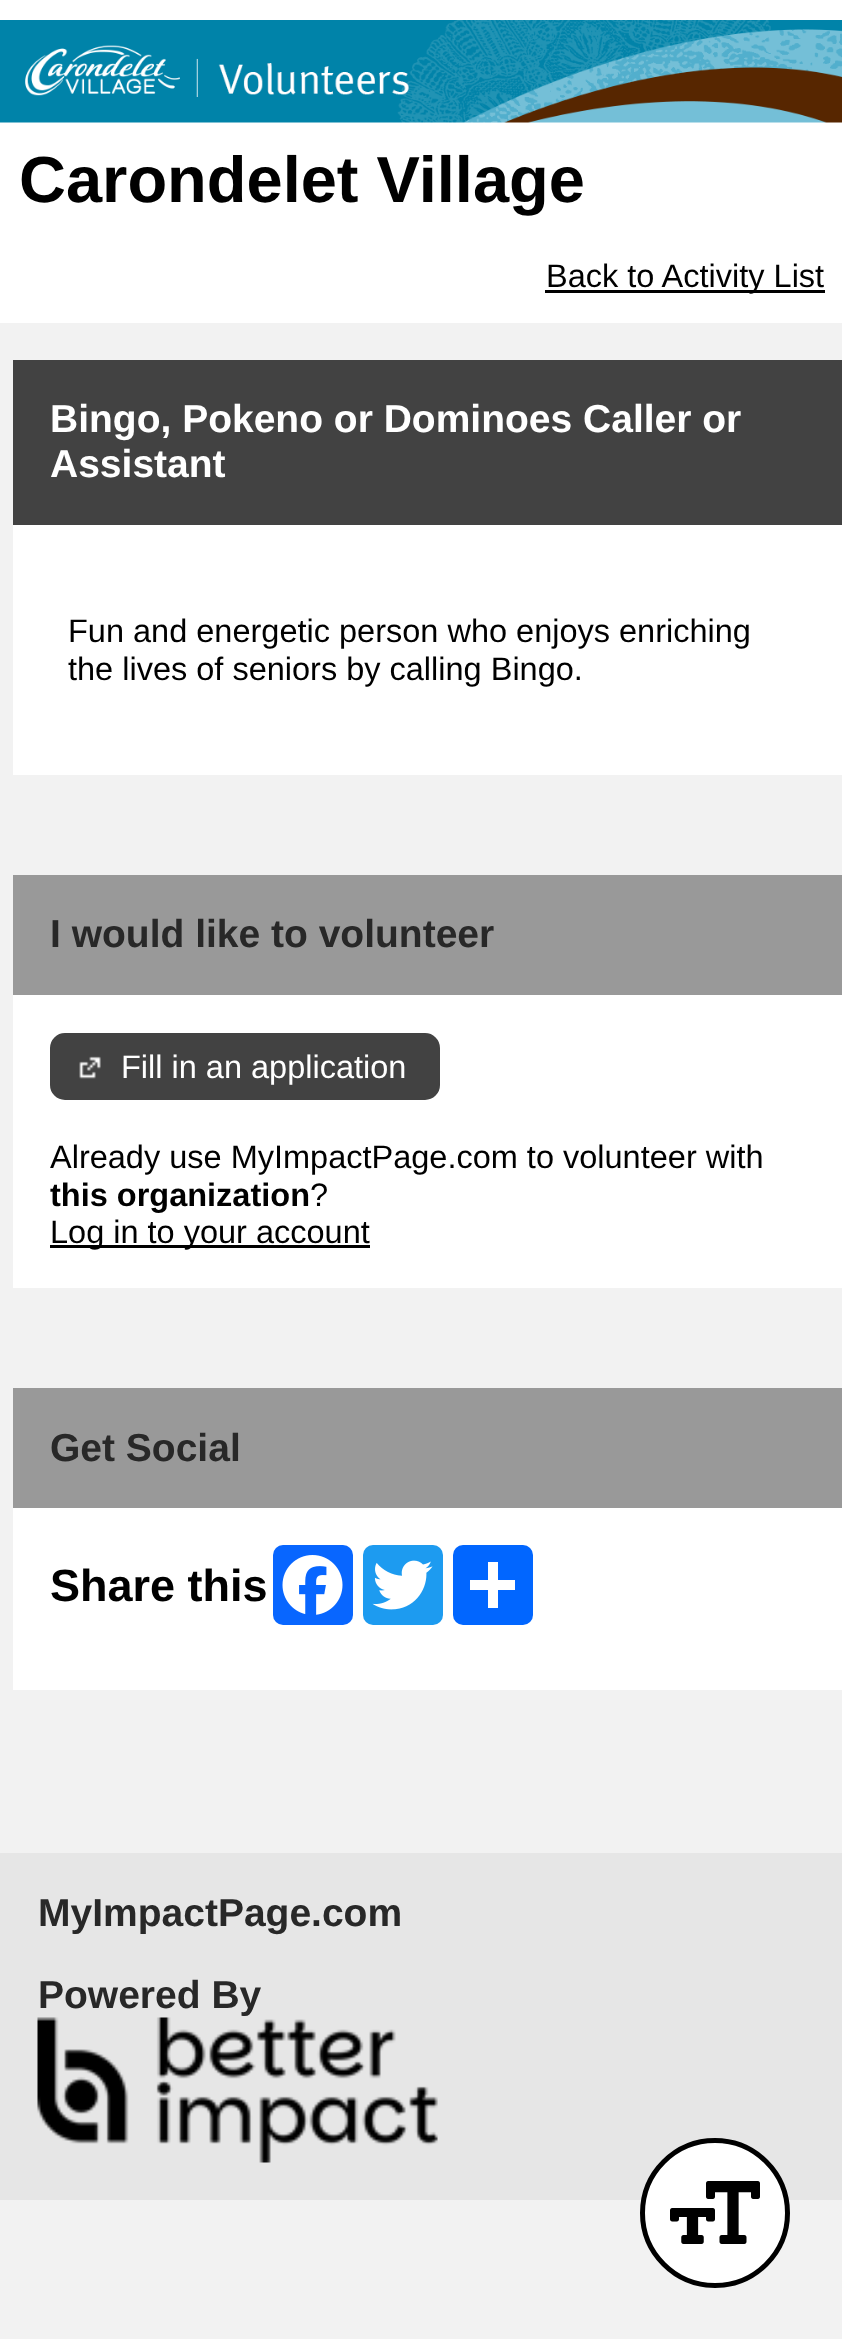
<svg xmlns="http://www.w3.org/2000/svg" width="842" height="2339">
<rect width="100%" height="100%" fill="#f2f2f2"/>
<rect width="842" height="323" fill="#fff"/>
<image x="0" y="20" width="842" height="103" href="media/1.png"/>
<text x="19" y="202" style="font-family:Liberation Sans;font-size:65px;font-weight:bold;fill:#000">Carondelet Village</text>
<rect x="545" y="290" width="280" height="3" fill="#000"/>
<text x="546" y="287" style="font-family:Liberation Sans;font-size:32.5px;fill:#000">Back to Activity List</text>
<rect x="13" y="360" width="829" height="165" fill="#424242"/>
<text x="50" y="432" style="font-family:Liberation Sans;font-size:39px;font-weight:bold;fill:#fff">Bingo, Pokeno or Dominoes Caller or</text>
<text x="50" y="477" style="font-family:Liberation Sans;font-size:39px;font-weight:bold;fill:#fff">Assistant</text>
<rect x="13" y="525" width="829" height="250" fill="#fff"/>
<text x="68" y="642" style="font-family:Liberation Sans;font-size:32.5px;fill:#000">Fun and energetic person who enjoys enriching</text>
<text x="68" y="680" style="font-family:Liberation Sans;font-size:32.5px;fill:#000">the lives of seniors by calling Bingo.</text>
<rect x="13" y="875" width="829" height="120" fill="#999"/>
<text x="50" y="947" style="font-family:Liberation Sans;font-size:39px;font-weight:bold;fill:#282828">I would like to volunteer</text>
<rect x="13" y="995" width="829" height="293" fill="#fff"/>
<rect x="51.5" y="1034.5" width="387" height="64" rx="13.5" fill="#424242" stroke="#424242" stroke-width="3"/>
<image x="79" y="1056" width="22" height="23" href="media/2.png"/>
<text x="121" y="1078" style="font-family:Liberation Sans;font-size:32.5px;fill:#fff">Fill in an application</text>
<text x="50" y="1168" style="font-family:Liberation Sans;font-size:32.5px;fill:#000">Already use MyImpactPage.com to volunteer with</text>
<text x="50" y="1206" style="font-family:Liberation Sans;font-size:32.5px;font-weight:bold;fill:#000">this organization</text>
<text x="310" y="1206" style="font-family:Liberation Sans;font-size:32.5px;fill:#000">?</text>
<rect x="50" y="1245" width="320" height="3" fill="#000"/>
<text x="50" y="1243" style="font-family:Liberation Sans;font-size:32.5px;fill:#000">Log in to your account</text>
<rect x="13" y="1388" width="829" height="120" fill="#999"/>
<text x="50" y="1461" style="font-family:Liberation Sans;font-size:39px;font-weight:bold;fill:#282828">Get Social</text>
<rect x="13" y="1508" width="829" height="182" fill="#fff"/>
<text x="50" y="1601" style="font-family:Liberation Sans;font-size:45px;font-weight:bold;fill:#000">Share this</text>
<rect x="273" y="1545" width="80" height="80" rx="10" fill="#0866ff"/>
<image x="282" y="1555" width="61" height="60" href="media/3.png"/>
<rect x="363" y="1545" width="80" height="80" rx="10" fill="#1d9bf0"/>
<image x="372" y="1560" width="61" height="50" href="media/4.png"/>
<rect x="453" y="1545" width="80" height="80" rx="10" fill="#0166ff"/>
<rect x="488" y="1562" width="10" height="46" fill="#fff"/>
<rect x="470" y="1580" width="45" height="10" fill="#fff"/>
<rect y="1853" width="842" height="347" fill="#e6e6e6"/>
<text x="38" y="1926" style="font-family:Liberation Sans;font-size:39px;font-weight:bold;fill:#282828">MyImpactPage.com</text>
<text x="38" y="2008" style="font-family:Liberation Sans;font-size:39px;font-weight:bold;fill:#282828">Powered By</text>
<image x="37" y="2017" width="401" height="146" href="media/5.png"/>
<circle cx="715" cy="2213" r="72.5" fill="#fff" stroke="#000" stroke-width="5"/>
<image x="670" y="2181" width="90" height="63" href="media/6.png"/>
</svg>
